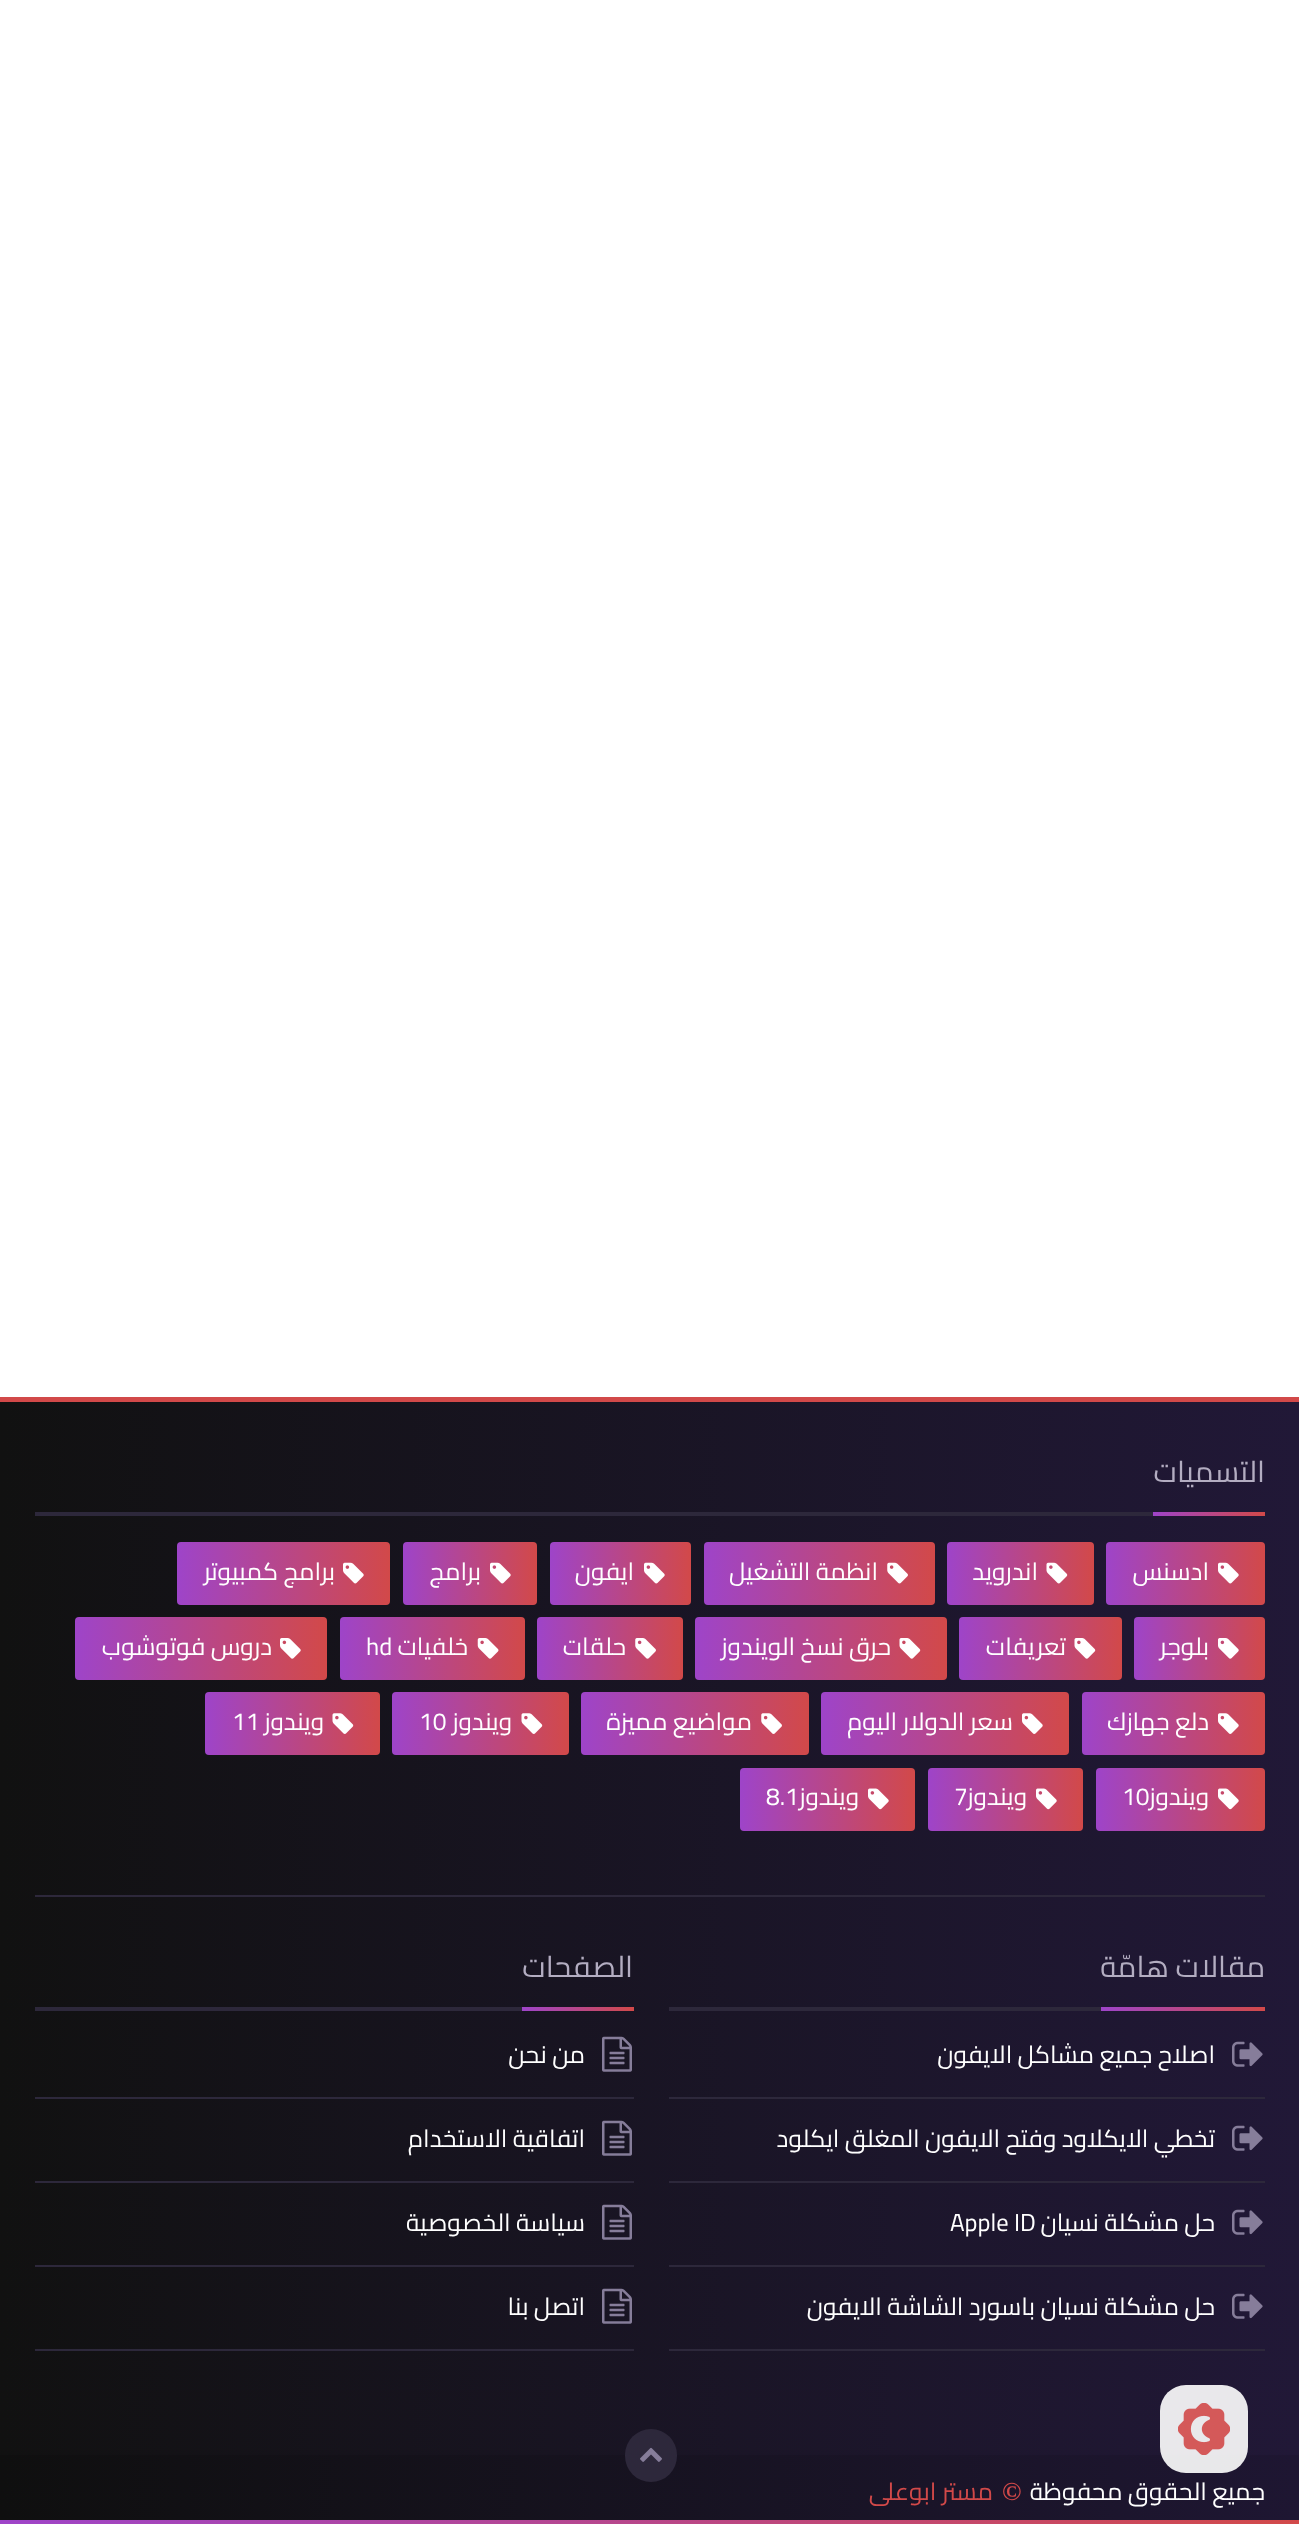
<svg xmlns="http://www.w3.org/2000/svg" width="1299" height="2524">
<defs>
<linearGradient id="g1" gradientUnits="userSpaceOnUse" x1="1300" y1="1961" x2="0" y2="1961"><stop offset="0" stop-color="#211837"/><stop offset="1" stop-color="#111"/></linearGradient>
<linearGradient id="g2" gradientUnits="userSpaceOnUse" x1="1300" y1="1961" x2="0" y2="1961"><stop offset="0" stop-color="#1e1632"/><stop offset="1" stop-color="#0f0f0f"/></linearGradient>
<linearGradient id="g3" gradientUnits="userSpaceOnUse" x1="1265" y1="1514" x2="1153" y2="1514"><stop offset="0" stop-color="#d24949"/><stop offset="1" stop-color="#9e44c9"/></linearGradient>
<linearGradient id="g4" gradientUnits="userSpaceOnUse" x1="1265" y1="1573" x2="1106" y2="1573"><stop offset="0" stop-color="#d24949"/><stop offset="1" stop-color="#9e44c9"/></linearGradient>
<linearGradient id="g5" gradientUnits="userSpaceOnUse" x1="1094" y1="1573" x2="947" y2="1573"><stop offset="0" stop-color="#d24949"/><stop offset="1" stop-color="#9e44c9"/></linearGradient>
<linearGradient id="g6" gradientUnits="userSpaceOnUse" x1="935" y1="1573" x2="704" y2="1573"><stop offset="0" stop-color="#d24949"/><stop offset="1" stop-color="#9e44c9"/></linearGradient>
<linearGradient id="g7" gradientUnits="userSpaceOnUse" x1="691" y1="1573" x2="550" y2="1573"><stop offset="0" stop-color="#d24949"/><stop offset="1" stop-color="#9e44c9"/></linearGradient>
<linearGradient id="g8" gradientUnits="userSpaceOnUse" x1="537" y1="1573" x2="403" y2="1573"><stop offset="0" stop-color="#d24949"/><stop offset="1" stop-color="#9e44c9"/></linearGradient>
<linearGradient id="g9" gradientUnits="userSpaceOnUse" x1="390" y1="1573" x2="177" y2="1573"><stop offset="0" stop-color="#d24949"/><stop offset="1" stop-color="#9e44c9"/></linearGradient>
<linearGradient id="g10" gradientUnits="userSpaceOnUse" x1="1265" y1="1649" x2="1134" y2="1649"><stop offset="0" stop-color="#d24949"/><stop offset="1" stop-color="#9e44c9"/></linearGradient>
<linearGradient id="g11" gradientUnits="userSpaceOnUse" x1="1122" y1="1649" x2="959" y2="1649"><stop offset="0" stop-color="#d24949"/><stop offset="1" stop-color="#9e44c9"/></linearGradient>
<linearGradient id="g12" gradientUnits="userSpaceOnUse" x1="947" y1="1649" x2="695" y2="1649"><stop offset="0" stop-color="#d24949"/><stop offset="1" stop-color="#9e44c9"/></linearGradient>
<linearGradient id="g13" gradientUnits="userSpaceOnUse" x1="683" y1="1649" x2="537" y2="1649"><stop offset="0" stop-color="#d24949"/><stop offset="1" stop-color="#9e44c9"/></linearGradient>
<linearGradient id="g14" gradientUnits="userSpaceOnUse" x1="525" y1="1649" x2="340" y2="1649"><stop offset="0" stop-color="#d24949"/><stop offset="1" stop-color="#9e44c9"/></linearGradient>
<linearGradient id="g15" gradientUnits="userSpaceOnUse" x1="327" y1="1649" x2="75" y2="1649"><stop offset="0" stop-color="#d24949"/><stop offset="1" stop-color="#9e44c9"/></linearGradient>
<linearGradient id="g16" gradientUnits="userSpaceOnUse" x1="1265" y1="1724" x2="1082" y2="1724"><stop offset="0" stop-color="#d24949"/><stop offset="1" stop-color="#9e44c9"/></linearGradient>
<linearGradient id="g17" gradientUnits="userSpaceOnUse" x1="1069" y1="1724" x2="821" y2="1724"><stop offset="0" stop-color="#d24949"/><stop offset="1" stop-color="#9e44c9"/></linearGradient>
<linearGradient id="g18" gradientUnits="userSpaceOnUse" x1="809" y1="1724" x2="581" y2="1724"><stop offset="0" stop-color="#d24949"/><stop offset="1" stop-color="#9e44c9"/></linearGradient>
<linearGradient id="g19" gradientUnits="userSpaceOnUse" x1="569" y1="1724" x2="392" y2="1724"><stop offset="0" stop-color="#d24949"/><stop offset="1" stop-color="#9e44c9"/></linearGradient>
<linearGradient id="g20" gradientUnits="userSpaceOnUse" x1="380" y1="1724" x2="205" y2="1724"><stop offset="0" stop-color="#d24949"/><stop offset="1" stop-color="#9e44c9"/></linearGradient>
<linearGradient id="g21" gradientUnits="userSpaceOnUse" x1="1265" y1="1799" x2="1096" y2="1799"><stop offset="0" stop-color="#d24949"/><stop offset="1" stop-color="#9e44c9"/></linearGradient>
<linearGradient id="g22" gradientUnits="userSpaceOnUse" x1="1083" y1="1799" x2="928" y2="1799"><stop offset="0" stop-color="#d24949"/><stop offset="1" stop-color="#9e44c9"/></linearGradient>
<linearGradient id="g23" gradientUnits="userSpaceOnUse" x1="915" y1="1799" x2="740" y2="1799"><stop offset="0" stop-color="#d24949"/><stop offset="1" stop-color="#9e44c9"/></linearGradient>
<linearGradient id="g24" gradientUnits="userSpaceOnUse" x1="1265" y1="2009" x2="1101" y2="2009"><stop offset="0" stop-color="#d24949"/><stop offset="1" stop-color="#9e44c9"/></linearGradient>
<linearGradient id="g25" gradientUnits="userSpaceOnUse" x1="634" y1="2009" x2="522" y2="2009"><stop offset="0" stop-color="#d24949"/><stop offset="1" stop-color="#9e44c9"/></linearGradient>
<linearGradient id="g26" gradientUnits="userSpaceOnUse" x1="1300" y1="2523" x2="0" y2="2523"><stop offset="0" stop-color="#d24949"/><stop offset="1" stop-color="#9e44c9"/></linearGradient>
</defs>
<rect width="100%" height="100%" fill="#fff"/>
<rect y="1402" width="1299" height="1053" fill="url(#g1)"/>
<rect y="2455" width="1299" height="65" fill="url(#g2)"/>
<rect y="1397" width="1299" height="5" fill="#d24949"/>
<rect x="35" y="1895" width="1230" height="2" fill="#2d283b"/>
<rect x="35" y="1512" width="1118" height="4" fill="#2d283b"/>
<text x="1265" y="1482" style="font-family:Cairo;font-size:29.75px;direction:rtl;fill:#b3adc1">التسميات</text>
<rect x="1153" y="1512" width="112" height="4" fill="url(#g3)"/>
<rect x="1106" y="1542" width="159" height="63" rx="4" fill="url(#g4)"/>
<image x="1218" y="1562" width="21" height="22" href="media/1.png"/>
<text x="1209" y="1580" style="font-family:Cairo;font-size:24.5px;direction:rtl;fill:#fff">ادسنس</text>
<rect x="947" y="1542" width="147" height="63" rx="4" fill="url(#g5)"/>
<image x="1046" y="1562" width="22" height="22" href="media/2.png"/>
<text x="1038" y="1580" style="font-family:Cairo;font-size:24.5px;direction:rtl;fill:#fff">اندرويد</text>
<rect x="704" y="1542" width="231" height="63" rx="4" fill="url(#g6)"/>
<image x="887" y="1562" width="21" height="22" href="media/3.png"/>
<text x="878" y="1580" style="font-family:Cairo;font-size:24.5px;direction:rtl;fill:#fff">انظمة التشغيل</text>
<rect x="550" y="1542" width="141" height="63" rx="4" fill="url(#g7)"/>
<image x="644" y="1562" width="21" height="22" href="media/4.png"/>
<text x="634" y="1580" style="font-family:Cairo;font-size:24.5px;direction:rtl;fill:#fff">ايفون</text>
<rect x="403" y="1542" width="134" height="63" rx="4" fill="url(#g8)"/>
<image x="490" y="1562" width="21" height="22" href="media/5.png"/>
<text x="481" y="1580" style="font-family:Cairo;font-size:24.5px;direction:rtl;fill:#fff">برامج</text>
<rect x="177" y="1542" width="213" height="63" rx="4" fill="url(#g9)"/>
<image x="343" y="1562" width="21" height="22" href="media/6.png"/>
<text x="335" y="1580" style="font-family:Cairo;font-size:24.5px;direction:rtl;fill:#fff">برامج كمبيوتر</text>
<rect x="1134" y="1617" width="131" height="63" rx="4" fill="url(#g10)"/>
<image x="1218" y="1638" width="21" height="21" href="media/7.png"/>
<text x="1209" y="1655" style="font-family:Cairo;font-size:24.5px;direction:rtl;fill:#fff">بلوجر</text>
<rect x="959" y="1617" width="163" height="63" rx="4" fill="url(#g11)"/>
<image x="1074" y="1638" width="22" height="21" href="media/8.png"/>
<text x="1066" y="1655" style="font-family:Cairo;font-size:24.5px;direction:rtl;fill:#fff">تعريفات</text>
<rect x="695" y="1617" width="252" height="63" rx="4" fill="url(#g12)"/>
<image x="899" y="1638" width="22" height="21" href="media/9.png"/>
<text x="891" y="1655" style="font-family:Cairo;font-size:24.5px;direction:rtl;fill:#fff">حرق نسخ الويندوز</text>
<rect x="537" y="1617" width="146" height="63" rx="4" fill="url(#g13)"/>
<image x="635" y="1638" width="21" height="21" href="media/10.png"/>
<text x="626" y="1655" style="font-family:Cairo;font-size:24.5px;direction:rtl;fill:#fff">حلقات</text>
<rect x="340" y="1617" width="185" height="63" rx="4" fill="url(#g14)"/>
<image x="477" y="1638" width="22" height="21" href="media/11.png"/>
<text x="468" y="1655" style="font-family:Cairo;font-size:24.5px;direction:rtl;fill:#fff">خلفيات</text>
<text x="366" y="1655" style="font-family:Cairo;font-size:24.5px;fill:#fff">hd</text>
<rect x="75" y="1617" width="252" height="63" rx="4" fill="url(#g15)"/>
<image x="280" y="1638" width="21" height="21" href="media/12.png"/>
<text x="272" y="1655" style="font-family:Cairo;font-size:24.5px;direction:rtl;fill:#fff">دروس فوتوشوب</text>
<rect x="1082" y="1692" width="183" height="63" rx="4" fill="url(#g16)"/>
<image x="1218" y="1713" width="21" height="21" href="media/13.png"/>
<text x="1209" y="1730" style="font-family:Cairo;font-size:24.5px;direction:rtl;fill:#fff">دلع جهازك</text>
<rect x="821" y="1692" width="248" height="63" rx="4" fill="url(#g17)"/>
<image x="1022" y="1713" width="21" height="21" href="media/14.png"/>
<text x="1013" y="1730" style="font-family:Cairo;font-size:24.5px;direction:rtl;fill:#fff">سعر الدولار اليوم</text>
<rect x="581" y="1692" width="228" height="63" rx="4" fill="url(#g18)"/>
<image x="761" y="1713" width="21" height="21" href="media/15.png"/>
<text x="752" y="1730" style="font-family:Cairo;font-size:24.5px;direction:rtl;fill:#fff">مواضيع مميزة</text>
<rect x="392" y="1692" width="177" height="63" rx="4" fill="url(#g19)"/>
<image x="521" y="1713" width="22" height="21" href="media/16.png"/>
<text x="512" y="1730" style="font-family:Cairo;font-size:24.5px;direction:rtl;fill:#fff">ويندوز</text>
<text x="419" y="1730" style="font-family:Cairo;font-size:24.5px;fill:#fff">10</text>
<rect x="205" y="1692" width="175" height="63" rx="4" fill="url(#g20)"/>
<image x="332" y="1713" width="22" height="21" href="media/17.png"/>
<text x="324" y="1730" style="font-family:Cairo;font-size:24.5px;direction:rtl;fill:#fff">ويندوز</text>
<text x="232" y="1730" style="font-family:Cairo;font-size:24.5px;fill:#fff">11</text>
<rect x="1096" y="1768" width="169" height="63" rx="4" fill="url(#g21)"/>
<image x="1218" y="1788" width="21" height="22" href="media/18.png"/>
<text x="1122" y="1805" style="font-family:Cairo;font-size:24.5px;fill:#fff">10</text>
<text x="1209" y="1805" style="font-family:Cairo;font-size:24.5px;direction:rtl;fill:#fff">ويندوز</text>
<rect x="928" y="1768" width="155" height="63" rx="4" fill="url(#g22)"/>
<image x="1036" y="1788" width="21" height="22" href="media/19.png"/>
<text x="1027" y="1805" style="font-family:Cairo;font-size:24.5px;direction:rtl;fill:#fff">ويندوز</text>
<text x="954" y="1805" style="font-family:Cairo;font-size:24.5px;fill:#fff">7</text>
<rect x="740" y="1768" width="175" height="63" rx="4" fill="url(#g23)"/>
<image x="868" y="1788" width="21" height="22" href="media/20.png"/>
<text x="859" y="1805" style="font-family:Cairo;font-size:24.5px;direction:rtl;fill:#fff">ويندوز</text>
<text x="766" y="1805" style="font-family:Cairo;font-size:24.5px;fill:#fff">8.1</text>
<rect x="669" y="2007" width="432" height="4" fill="#2d283b"/>
<text x="1265" y="1977" style="font-family:Cairo;font-size:29.75px;direction:rtl;fill:#b3adc1">مقالات هامّة</text>
<rect x="1101" y="2007" width="164" height="4" fill="url(#g24)"/>
<rect x="669" y="2097" width="596" height="2" fill="#2d283b"/>
<image x="1232" y="2041" width="31" height="26" href="media/21.png"/>
<text x="1215" y="2063" style="font-family:Cairo;font-size:24.5px;direction:rtl;fill:#fff">اصلاح جميع مشاكل الايفون</text>
<rect x="669" y="2181" width="596" height="2" fill="#2d283b"/>
<image x="1232" y="2125" width="31" height="26" href="media/22.png"/>
<text x="1215" y="2147" style="font-family:Cairo;font-size:24.5px;direction:rtl;fill:#fff">تخطي الايكلاود وفتح الايفون المغلق ايكلود</text>
<rect x="669" y="2265" width="596" height="2" fill="#2d283b"/>
<image x="1232" y="2209" width="31" height="26" href="media/22.png"/>
<text x="1215" y="2231" style="font-family:Cairo;font-size:24.5px;direction:rtl;fill:#fff">حل مشكلة نسيان</text>
<text x="950" y="2231" style="font-family:Cairo;font-size:24.5px;fill:#fff">Apple ID</text>
<rect x="669" y="2349" width="596" height="2" fill="#2d283b"/>
<image x="1232" y="2293" width="31" height="26" href="media/22.png"/>
<text x="1215" y="2315" style="font-family:Cairo;font-size:24.5px;direction:rtl;fill:#fff">حل مشكلة نسيان باسورد الشاشة الايفون</text>
<rect x="35" y="2007" width="487" height="4" fill="#2d283b"/>
<text x="633" y="1977" style="font-family:Cairo;font-size:29.75px;direction:rtl;fill:#b3adc1">الصفحات</text>
<rect x="522" y="2007" width="112" height="4" fill="url(#g25)"/>
<rect x="35" y="2097" width="599" height="2" fill="#2d283b"/>
<image x="602" y="2036" width="30" height="36" href="media/23.png"/>
<text x="585" y="2063" style="font-family:Cairo;font-size:24.5px;direction:rtl;fill:#fff">من نحن</text>
<rect x="35" y="2181" width="599" height="2" fill="#2d283b"/>
<image x="602" y="2120" width="30" height="36" href="media/23.png"/>
<text x="585" y="2147" style="font-family:Cairo;font-size:24.5px;direction:rtl;fill:#fff">اتفاقية الاستخدام</text>
<rect x="35" y="2265" width="599" height="2" fill="#2d283b"/>
<image x="602" y="2204" width="30" height="36" href="media/23.png"/>
<text x="585" y="2231" style="font-family:Cairo;font-size:24.5px;direction:rtl;fill:#fff">سياسة الخصوصية</text>
<rect x="35" y="2349" width="599" height="2" fill="#2d283b"/>
<image x="602" y="2288" width="30" height="36" href="media/23.png"/>
<text x="585" y="2315" style="font-family:Cairo;font-size:24.5px;direction:rtl;fill:#fff">اتصل بنا</text>
<rect x="625" y="2429" width="52" height="53" rx="26" fill="#2d283b"/>
<image x="640" y="2447" width="22" height="15" href="media/24.png"/>
<text x="1265" y="2500" style="font-family:Cairo;font-size:24.5px;direction:rtl;fill:#fff">جميع الحقوق محفوظة</text>
<text x="1002" y="2500" style="font-family:Liberation Serif;font-size:26px;font-weight:bold;fill:#d24949">©</text>
<text x="993" y="2500" style="font-family:Cairo;font-size:24.5px;direction:rtl;fill:#d24949">مستر ابوعلى</text>
<rect y="2520" width="1299" height="4" fill="url(#g26)"/>
<rect x="1160" y="2385" width="88" height="88" rx="26" fill="#ffffffe6"/>
<image x="1178" y="2403" width="52" height="52" href="media/25.png"/>
</svg>
